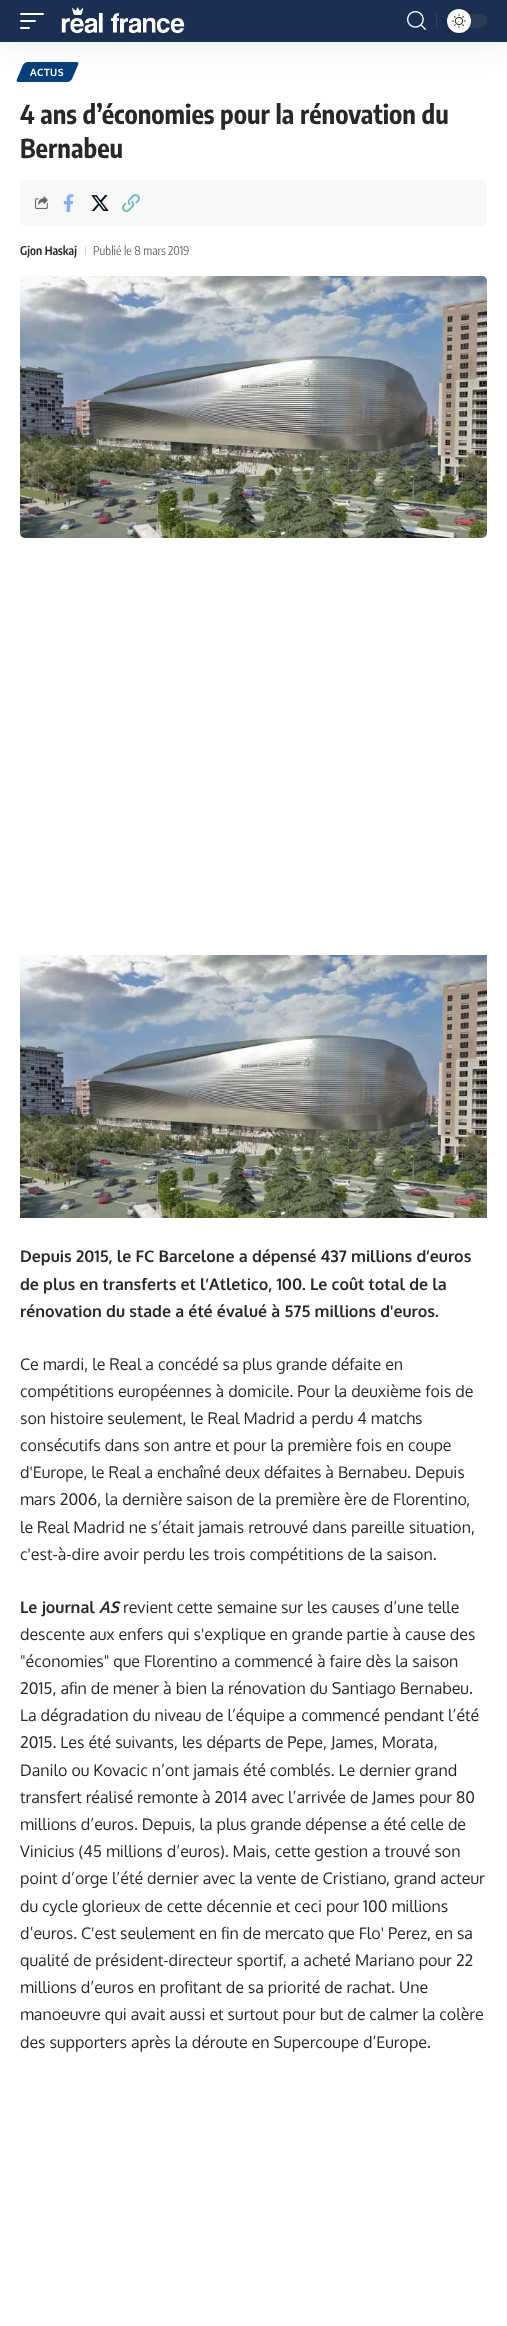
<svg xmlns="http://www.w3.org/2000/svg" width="507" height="2326">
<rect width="100%" height="100%" fill="#fff"/>
<path d="M28 62h49c1 0 2 1 1 3l-6 14c-1 2-3 3-5 3h-49c-1 0-2-1-1-3l6-14c1-2 3-3 5-3z" fill="#06407a"/>
<rect y="4" width="507" height="42" fill="#00000012" filter="blur(15px)"/>
<rect width="507" height="42" fill="#1a2f51"/>
<rect x="20" y="13" width="24" height="2" rx="1" fill="#fff"/>
<rect x="20" y="20" width="16" height="2" rx="1" fill="#fff"/>
<rect x="20" y="27" width="10" height="2" rx="1" fill="#fff"/>
<image x="61" y="7" width="124" height="27" href="media/1.png"/>
<image x="407" y="11" width="19" height="19" href="media/2.png"/>
<rect x="436" y="14" width="1" height="14" fill="#314462"/>
<rect x="447" y="14" width="40" height="14" rx="7" fill="#2b3c59"/>
<rect x="447" y="10" width="24" height="24" rx="12" fill="#0000001f" filter="blur(2px)"/>
<circle cx="459" cy="21" r="12" fill="#fff"/>
<image x="452" y="14" width="14" height="14" href="media/3.png"/>
<text x="30" y="76" style="font-family:Oxygen;font-size:10px;font-weight:bold;letter-spacing:0.5px;fill:#fff">ACTUS</text>
<text x="20" y="124" style="font-family:Encode Sans Condensed;font-size:26px;font-weight:bold;fill:#282828">4 ans d’économies pour la rénovation du</text>
<text x="20" y="158" style="font-family:Encode Sans Condensed;font-size:26px;font-weight:bold;fill:#282828">Bernabeu</text>
<rect x="20" y="180" width="467" height="46" rx="5" fill="#f7f7f7"/>
<image x="35" y="196" width="13" height="13" href="media/4.png"/>
<image x="63" y="194" width="11" height="18" href="media/5.png"/>
<image x="91" y="195" width="18" height="16" href="media/6.png"/>
<image x="122" y="194" width="18" height="18" href="media/7.png"/>
<text x="20" y="255" style="font-family:Encode Sans Condensed;font-size:12px;font-weight:600;fill:#282828">Gjon Haskaj</text>
<rect x="85" y="247" width="1" height="8" fill="#d1d1d1"/>
<text x="93" y="255" style="font-family:Encode Sans Condensed;font-size:12px;fill:#666">Publié le 8 mars 2019</text>
<image x="20" y="276" width="467" height="262" href="media/8.png"/>
<image x="20" y="955" width="467" height="263" href="media/9.png"/>
<text x="20" y="1262" style="font-family:Oxygen;font-size:16px;font-weight:bold;fill:#282828">Depuis 2015, le FC Barcelone a dépensé 437 millions d’euros</text>
<text x="20" y="1290" style="font-family:Oxygen;font-size:16px;font-weight:bold;fill:#282828">de plus en transferts et l’Atletico, 100. Le coût total de la</text>
<text x="20" y="1317" style="font-family:Oxygen;font-size:16px;font-weight:bold;fill:#282828">rénovation du stade a été évalué à 575 millions d'euros.</text>
<text x="20" y="1370" style="font-family:Oxygen;font-size:16px;fill:#282828">Ce mardi, le Real a concédé sa plus grande défaite en</text>
<text x="20" y="1397" style="font-family:Oxygen;font-size:16px;fill:#282828">compétitions européennes à domicile. Pour la deuxième fois de</text>
<text x="20" y="1424" style="font-family:Oxygen;font-size:16px;fill:#282828">son histoire seulement, le Real Madrid a perdu 4 matchs</text>
<text x="20" y="1451" style="font-family:Oxygen;font-size:16px;fill:#282828">consécutifs dans son antre et pour la première fois en coupe</text>
<text x="20" y="1478" style="font-family:Oxygen;font-size:16px;fill:#282828">d'Europe, le Real a enchaîné deux défaites à Bernabeu. Depuis</text>
<text x="20" y="1505" style="font-family:Oxygen;font-size:16px;fill:#282828">mars 2006, la dernière saison de la première ère de Florentino,</text>
<text x="20" y="1533" style="font-family:Oxygen;font-size:16px;fill:#282828">le Real Madrid ne s’était jamais retrouvé dans pareille situation,</text>
<text x="20" y="1560" style="font-family:Oxygen;font-size:16px;fill:#282828">c'est-à-dire avoir perdu les trois compétitions de la saison.</text>
<text x="20" y="1613" style="font-family:Oxygen;font-size:16px;font-weight:bold;fill:#282828">Le journal</text>
<text x="99" y="1613" style="font-family:Oxygen;font-size:16px;font-weight:bold;font-style:italic;fill:#282828">AS</text>
<text x="123" y="1613" style="font-family:Oxygen;font-size:16px;fill:#282828">revient cette semaine sur les causes d’une telle</text>
<text x="20" y="1640" style="font-family:Oxygen;font-size:16px;fill:#282828">descente aux enfers qui s'explique en grande partie à cause des</text>
<text x="20" y="1667" style="font-family:Oxygen;font-size:16px;fill:#282828">"économies" que Florentino a commencé à faire dès la saison</text>
<text x="20" y="1694" style="font-family:Oxygen;font-size:16px;fill:#282828">2015, afin de mener à bien la rénovation du Santiago Bernabeu.</text>
<text x="20" y="1721" style="font-family:Oxygen;font-size:16px;fill:#282828">La dégradation du niveau de l’équipe a commencé pendant l’été</text>
<text x="20" y="1748" style="font-family:Oxygen;font-size:16px;fill:#282828">2015. Les été suivants, les départs de Pepe, James, Morata,</text>
<text x="20" y="1776" style="font-family:Oxygen;font-size:16px;fill:#282828">Danilo ou Kovacic n’ont jamais été comblés. Le dernier grand</text>
<text x="20" y="1803" style="font-family:Oxygen;font-size:16px;fill:#282828">transfert réalisé remonte à 2014 avec l’arrivée de James pour 80</text>
<text x="20" y="1830" style="font-family:Oxygen;font-size:16px;fill:#282828">millions d’euros. Depuis, la plus grande dépense a été celle de</text>
<text x="20" y="1857" style="font-family:Oxygen;font-size:16px;fill:#282828">Vinicius (45 millions d’euros). Mais, cette gestion a trouvé son</text>
<text x="20" y="1884" style="font-family:Oxygen;font-size:16px;fill:#282828">point d’orge l’été dernier avec la vente de Cristiano, grand acteur</text>
<text x="20" y="1912" style="font-family:Oxygen;font-size:16px;fill:#282828">du cycle glorieux de cette décennie et ceci pour 100 millions</text>
<text x="20" y="1939" style="font-family:Oxygen;font-size:16px;fill:#282828">d’euros. C'est seulement en fin de mercato que Flo' Perez, en sa</text>
<text x="20" y="1966" style="font-family:Oxygen;font-size:16px;fill:#282828">qualité de président-directeur sportif, a acheté Mariano pour 22</text>
<text x="20" y="1993" style="font-family:Oxygen;font-size:16px;fill:#282828">millions d’euros en profitant de sa priorité de rachat. Une</text>
<text x="20" y="2020" style="font-family:Oxygen;font-size:16px;fill:#282828">manoeuvre qui avait aussi et surtout pour but de calmer la colère</text>
<text x="20" y="2048" style="font-family:Oxygen;font-size:16px;fill:#282828">des supporters après la déroute en Supercoupe d’Europe.</text>
</svg>
